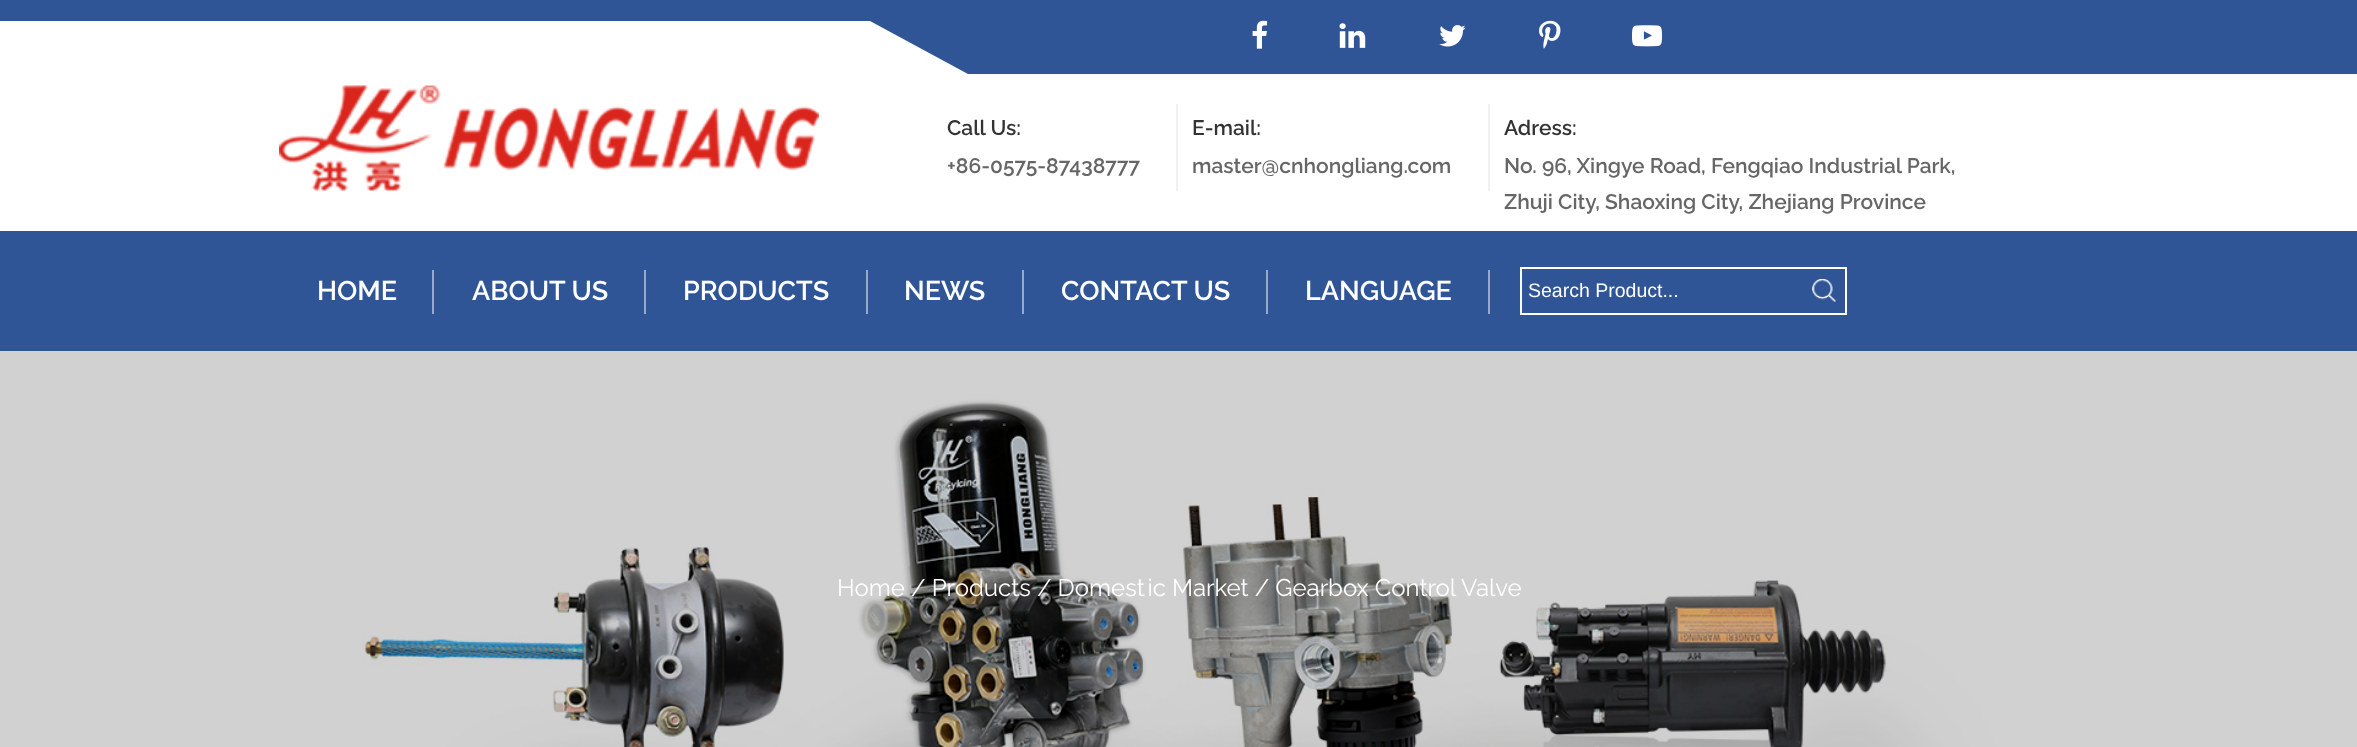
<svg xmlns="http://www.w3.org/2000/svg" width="2357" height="747">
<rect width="100%" height="100%" fill="#fff"/>
<rect width="2357" height="74" fill="#2f5597"/>
<path d="M968 74h-968v-53h870z" fill="#fff"/>
<image x="1252" y="20" width="16" height="29" href="media/1.png"/>
<image x="1339" y="23" width="27" height="25" href="media/2.png"/>
<image x="1439" y="25" width="27" height="22" href="media/3.png"/>
<image x="1539" y="20" width="22" height="29" href="media/4.png"/>
<image x="1632" y="25" width="30" height="22" href="media/5.png"/>
<image x="279" y="85" width="540" height="106" href="media/6.png"/>
<text x="947" y="135" style="font-family:Raleway;font-size:21px;font-weight:600;fill:#333">Call Us:</text>
<rect x="1176" y="104" width="2" height="87" fill="#f1f1f1"/>
<text x="947" y="173" style="font-family:Raleway;font-size:21px;font-weight:600;fill:#666">+86-0575-87438777</text>
<text x="1192" y="135" style="font-family:Raleway;font-size:21px;font-weight:600;fill:#333">E-mail:</text>
<rect x="1488" y="104" width="2" height="87" fill="#f1f1f1"/>
<text x="1192" y="173" style="font-family:Raleway;font-size:21px;font-weight:600;fill:#666">master@cnhongliang.com</text>
<text x="1504" y="135" style="font-family:Raleway;font-size:21px;font-weight:600;fill:#333">Adress:</text>
<text x="1504" y="173" style="font-family:Raleway;font-size:21px;font-weight:600;fill:#666">No. 96, Xingye Road, Fengqiao Industrial Park,</text>
<text x="1504" y="209" style="font-family:Raleway;font-size:21px;font-weight:600;fill:#666">Zhuji City, Shaoxing City, Zhejiang Province</text>
<rect y="231" width="2357" height="120" fill="#2f5597"/>
<text x="317" y="300" style="font-family:Raleway;font-size:27px;font-weight:600;fill:#fff">HOME</text>
<rect x="432" y="270" width="2" height="44" fill="#97aacb"/>
<text x="472" y="300" style="font-family:Raleway;font-size:27px;font-weight:600;fill:#fff">ABOUT US</text>
<rect x="644" y="270" width="2" height="44" fill="#97aacb"/>
<text x="683" y="300" style="font-family:Raleway;font-size:27px;font-weight:600;fill:#fff">PRODUCTS</text>
<rect x="866" y="270" width="2" height="44" fill="#97aacb"/>
<text x="904" y="300" style="font-family:Raleway;font-size:27px;font-weight:600;fill:#fff">NEWS</text>
<rect x="1022" y="270" width="2" height="44" fill="#97aacb"/>
<text x="1061" y="300" style="font-family:Raleway;font-size:27px;font-weight:600;fill:#fff">CONTACT US</text>
<rect x="1266" y="270" width="2" height="44" fill="#97aacb"/>
<text x="1305" y="300" style="font-family:Raleway;font-size:27px;font-weight:600;fill:#fff">LANGUAGE</text>
<rect x="1488" y="270" width="2" height="44" fill="#97aacb"/>
<rect x="1521" y="268" width="325" height="46" fill="none" stroke="#fff" stroke-width="2"/>
<text x="1528" y="297" style="font-family:Liberation Sans;font-size:19.5px;fill:#fff">Search Product...</text>
<image x="1812" y="279" width="24" height="23" href="media/7.png"/>
<image x="0" y="351" width="2357" height="396" href="media/8.png"/>
<text x="837" y="596" style="font-family:Raleway;font-size:24px;fill:#fff">Home / Products / Domestic Market / Gearbox Control Valve</text>
</svg>
